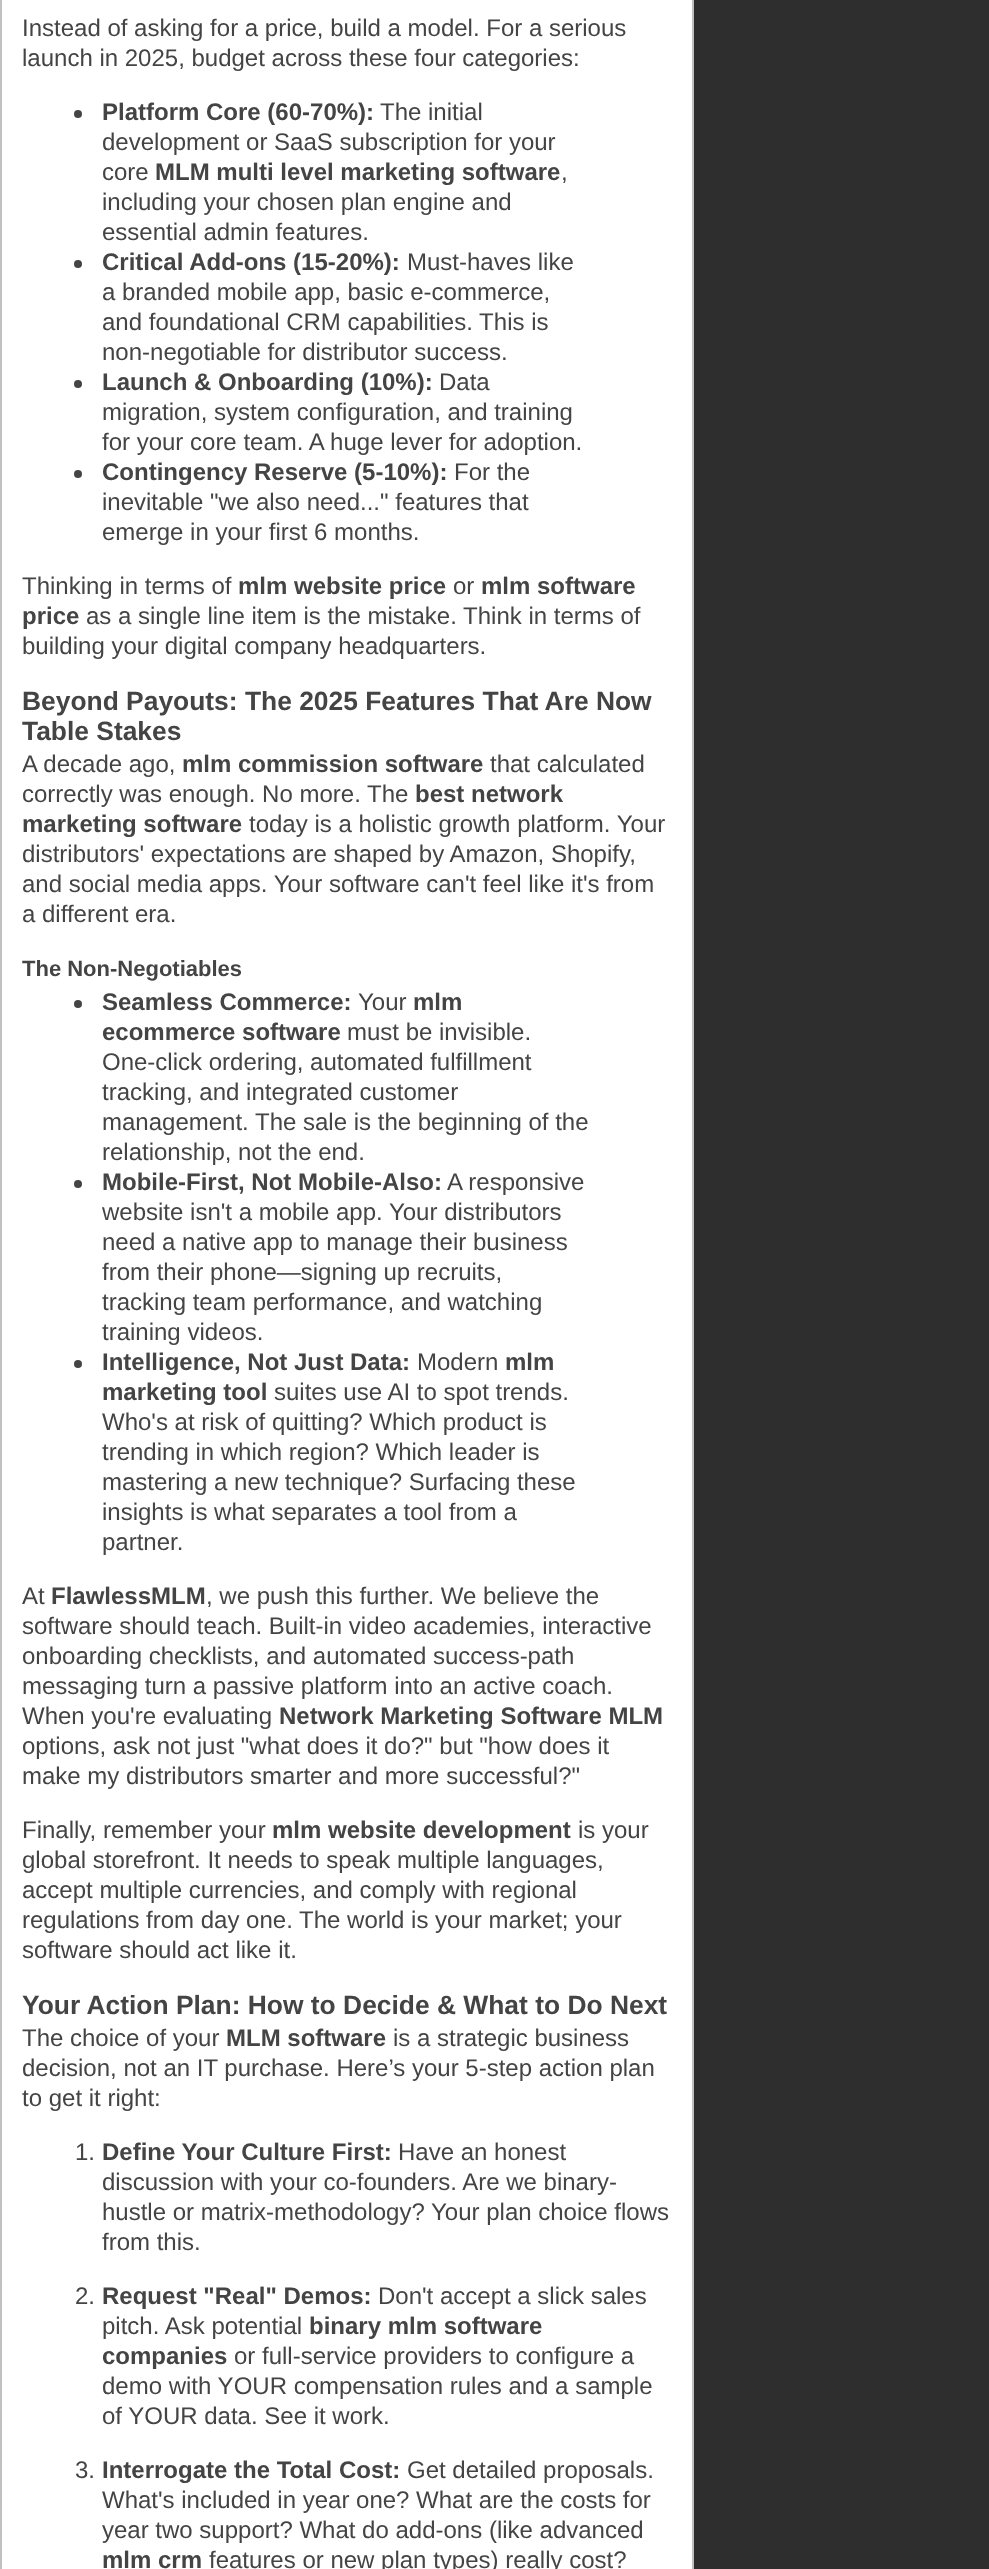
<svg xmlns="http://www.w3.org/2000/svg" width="989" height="2569">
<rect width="100%" height="100%" fill="#2e2e2e"/>
<rect x="1" y="-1" width="692" height="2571" fill="#fff" stroke="#c0c0c0" stroke-width="2"/>
<text x="22" y="36" style="font-family:Liberation Sans;font-size:24px;fill:#444">Instead of asking for a price, build a model. For a serious</text>
<text x="22" y="66" style="font-family:Liberation Sans;font-size:24px;fill:#444">launch in 2025, budget across these four categories:</text>
<circle cx="78" cy="114" r="4" fill="#444"/>
<text x="102" y="120" style="font-family:Liberation Sans;font-size:24px;font-weight:bold;fill:#444">Platform Core (60-70%):</text>
<text x="380" y="120" style="font-family:Liberation Sans;font-size:24px;fill:#444">The initial</text>
<text x="102" y="150" style="font-family:Liberation Sans;font-size:24px;fill:#444">development or SaaS subscription for your</text>
<text x="102" y="180" style="font-family:Liberation Sans;font-size:24px;fill:#444">core</text>
<text x="155" y="180" style="font-family:Liberation Sans;font-size:24px;font-weight:bold;fill:#444">MLM multi level marketing software</text>
<text x="561" y="180" style="font-family:Liberation Sans;font-size:24px;fill:#444">,</text>
<text x="102" y="210" style="font-family:Liberation Sans;font-size:24px;fill:#444">including your chosen plan engine and</text>
<text x="102" y="240" style="font-family:Liberation Sans;font-size:24px;fill:#444">essential admin features.</text>
<circle cx="78" cy="264" r="4" fill="#444"/>
<text x="102" y="270" style="font-family:Liberation Sans;font-size:24px;font-weight:bold;fill:#444">Critical Add-ons (15-20%):</text>
<text x="407" y="270" style="font-family:Liberation Sans;font-size:24px;fill:#444">Must-haves like</text>
<text x="102" y="300" style="font-family:Liberation Sans;font-size:24px;fill:#444">a branded mobile app, basic e-commerce,</text>
<text x="102" y="330" style="font-family:Liberation Sans;font-size:24px;fill:#444">and foundational CRM capabilities. This is</text>
<text x="102" y="360" style="font-family:Liberation Sans;font-size:24px;fill:#444">non-negotiable for distributor success.</text>
<circle cx="78" cy="384" r="4" fill="#444"/>
<text x="102" y="390" style="font-family:Liberation Sans;font-size:24px;font-weight:bold;fill:#444">Launch &amp; Onboarding (10%):</text>
<text x="439" y="390" style="font-family:Liberation Sans;font-size:24px;fill:#444">Data</text>
<text x="102" y="420" style="font-family:Liberation Sans;font-size:24px;fill:#444">migration, system configuration, and training</text>
<text x="102" y="450" style="font-family:Liberation Sans;font-size:24px;fill:#444">for your core team. A huge lever for adoption.</text>
<circle cx="78" cy="474" r="4" fill="#444"/>
<text x="102" y="480" style="font-family:Liberation Sans;font-size:24px;font-weight:bold;fill:#444">Contingency Reserve (5-10%):</text>
<text x="454" y="480" style="font-family:Liberation Sans;font-size:24px;fill:#444">For the</text>
<text x="102" y="510" style="font-family:Liberation Sans;font-size:24px;fill:#444">inevitable "we also need..." features that</text>
<text x="102" y="540" style="font-family:Liberation Sans;font-size:24px;fill:#444">emerge in your first 6 months.</text>
<text x="22" y="594" style="font-family:Liberation Sans;font-size:24px;fill:#444">Thinking in terms of</text>
<text x="238" y="594" style="font-family:Liberation Sans;font-size:24px;font-weight:bold;fill:#444">mlm website price</text>
<text x="453" y="594" style="font-family:Liberation Sans;font-size:24px;fill:#444">or</text>
<text x="481" y="594" style="font-family:Liberation Sans;font-size:24px;font-weight:bold;fill:#444">mlm software</text>
<text x="22" y="624" style="font-family:Liberation Sans;font-size:24px;font-weight:bold;fill:#444">price</text>
<text x="86" y="624" style="font-family:Liberation Sans;font-size:24px;fill:#444">as a single line item is the mistake. Think in terms of</text>
<text x="22" y="654" style="font-family:Liberation Sans;font-size:24px;fill:#444">building your digital company headquarters.</text>
<text x="22" y="710" style="font-family:Liberation Sans;font-size:26.4px;font-weight:bold;fill:#444">Beyond Payouts: The 2025 Features That Are Now</text>
<text x="22" y="740" style="font-family:Liberation Sans;font-size:26.4px;font-weight:bold;fill:#444">Table Stakes</text>
<text x="22" y="772" style="font-family:Liberation Sans;font-size:24px;fill:#444">A decade ago,</text>
<text x="182" y="772" style="font-family:Liberation Sans;font-size:24px;font-weight:bold;fill:#444">mlm commission software</text>
<text x="490" y="772" style="font-family:Liberation Sans;font-size:24px;fill:#444">that calculated</text>
<text x="22" y="802" style="font-family:Liberation Sans;font-size:24px;fill:#444">correctly was enough. No more. The</text>
<text x="415" y="802" style="font-family:Liberation Sans;font-size:24px;font-weight:bold;fill:#444">best network</text>
<text x="22" y="832" style="font-family:Liberation Sans;font-size:24px;font-weight:bold;fill:#444">marketing software</text>
<text x="249" y="832" style="font-family:Liberation Sans;font-size:24px;fill:#444">today is a holistic growth platform. Your</text>
<text x="22" y="862" style="font-family:Liberation Sans;font-size:24px;fill:#444">distributors' expectations are shaped by Amazon, Shopify,</text>
<text x="22" y="892" style="font-family:Liberation Sans;font-size:24px;fill:#444">and social media apps. Your software can't feel like it's from</text>
<text x="22" y="922" style="font-family:Liberation Sans;font-size:24px;fill:#444">a different era.</text>
<text x="22" y="976" style="font-family:Liberation Sans;font-size:22px;font-weight:bold;fill:#444">The Non-Negotiables</text>
<circle cx="78" cy="1004" r="4" fill="#444"/>
<text x="102" y="1010" style="font-family:Liberation Sans;font-size:24px;font-weight:bold;fill:#444">Seamless Commerce:</text>
<text x="358" y="1010" style="font-family:Liberation Sans;font-size:24px;fill:#444">Your</text>
<text x="413" y="1010" style="font-family:Liberation Sans;font-size:24px;font-weight:bold;fill:#444">mlm</text>
<text x="102" y="1040" style="font-family:Liberation Sans;font-size:24px;font-weight:bold;fill:#444">ecommerce software</text>
<text x="347" y="1040" style="font-family:Liberation Sans;font-size:24px;fill:#444">must be invisible.</text>
<text x="102" y="1070" style="font-family:Liberation Sans;font-size:24px;fill:#444">One-click ordering, automated fulfillment</text>
<text x="102" y="1100" style="font-family:Liberation Sans;font-size:24px;fill:#444">tracking, and integrated customer</text>
<text x="102" y="1130" style="font-family:Liberation Sans;font-size:24px;fill:#444">management. The sale is the beginning of the</text>
<text x="102" y="1160" style="font-family:Liberation Sans;font-size:24px;fill:#444">relationship, not the end.</text>
<circle cx="78" cy="1184" r="4" fill="#444"/>
<text x="102" y="1190" style="font-family:Liberation Sans;font-size:24px;font-weight:bold;fill:#444">Mobile-First, Not Mobile-Also:</text>
<text x="447" y="1190" style="font-family:Liberation Sans;font-size:24px;fill:#444">A responsive</text>
<text x="102" y="1220" style="font-family:Liberation Sans;font-size:24px;fill:#444">website isn't a mobile app. Your distributors</text>
<text x="102" y="1250" style="font-family:Liberation Sans;font-size:24px;fill:#444">need a native app to manage their business</text>
<text x="102" y="1280" style="font-family:Liberation Sans;font-size:24px;fill:#444">from their phone—signing up recruits,</text>
<text x="102" y="1310" style="font-family:Liberation Sans;font-size:24px;fill:#444">tracking team performance, and watching</text>
<text x="102" y="1340" style="font-family:Liberation Sans;font-size:24px;fill:#444">training videos.</text>
<circle cx="78" cy="1364" r="4" fill="#444"/>
<text x="102" y="1370" style="font-family:Liberation Sans;font-size:24px;font-weight:bold;fill:#444">Intelligence, Not Just Data:</text>
<text x="417" y="1370" style="font-family:Liberation Sans;font-size:24px;fill:#444">Modern</text>
<text x="505" y="1370" style="font-family:Liberation Sans;font-size:24px;font-weight:bold;fill:#444">mlm</text>
<text x="102" y="1400" style="font-family:Liberation Sans;font-size:24px;font-weight:bold;fill:#444">marketing tool</text>
<text x="274" y="1400" style="font-family:Liberation Sans;font-size:24px;fill:#444">suites use AI to spot trends.</text>
<text x="102" y="1430" style="font-family:Liberation Sans;font-size:24px;fill:#444">Who's at risk of quitting? Which product is</text>
<text x="102" y="1460" style="font-family:Liberation Sans;font-size:24px;fill:#444">trending in which region? Which leader is</text>
<text x="102" y="1490" style="font-family:Liberation Sans;font-size:24px;fill:#444">mastering a new technique? Surfacing these</text>
<text x="102" y="1520" style="font-family:Liberation Sans;font-size:24px;fill:#444">insights is what separates a tool from a</text>
<text x="102" y="1550" style="font-family:Liberation Sans;font-size:24px;fill:#444">partner.</text>
<text x="22" y="1604" style="font-family:Liberation Sans;font-size:24px;fill:#444">At</text>
<text x="51" y="1604" style="font-family:Liberation Sans;font-size:24px;font-weight:bold;fill:#444">FlawlessMLM</text>
<text x="206" y="1604" style="font-family:Liberation Sans;font-size:24px;fill:#444">, we push this further. We believe the</text>
<text x="22" y="1634" style="font-family:Liberation Sans;font-size:24px;fill:#444">software should teach. Built-in video academies, interactive</text>
<text x="22" y="1664" style="font-family:Liberation Sans;font-size:24px;fill:#444">onboarding checklists, and automated success-path</text>
<text x="22" y="1694" style="font-family:Liberation Sans;font-size:24px;fill:#444">messaging turn a passive platform into an active coach.</text>
<text x="22" y="1724" style="font-family:Liberation Sans;font-size:24px;fill:#444">When you're evaluating</text>
<text x="279" y="1724" style="font-family:Liberation Sans;font-size:24px;font-weight:bold;fill:#444">Network Marketing Software MLM</text>
<text x="22" y="1754" style="font-family:Liberation Sans;font-size:24px;fill:#444">options, ask not just "what does it do?" but "how does it</text>
<text x="22" y="1784" style="font-family:Liberation Sans;font-size:24px;fill:#444">make my distributors smarter and more successful?"</text>
<text x="22" y="1838" style="font-family:Liberation Sans;font-size:24px;fill:#444">Finally, remember your</text>
<text x="272" y="1838" style="font-family:Liberation Sans;font-size:24px;font-weight:bold;fill:#444">mlm website development</text>
<text x="578" y="1838" style="font-family:Liberation Sans;font-size:24px;fill:#444">is your</text>
<text x="22" y="1868" style="font-family:Liberation Sans;font-size:24px;fill:#444">global storefront. It needs to speak multiple languages,</text>
<text x="22" y="1898" style="font-family:Liberation Sans;font-size:24px;fill:#444">accept multiple currencies, and comply with regional</text>
<text x="22" y="1928" style="font-family:Liberation Sans;font-size:24px;fill:#444">regulations from day one. The world is your market; your</text>
<text x="22" y="1958" style="font-family:Liberation Sans;font-size:24px;fill:#444">software should act like it.</text>
<text x="22" y="2014" style="font-family:Liberation Sans;font-size:26.4px;font-weight:bold;fill:#444">Your Action Plan: How to Decide &amp; What to Do Next</text>
<text x="22" y="2046" style="font-family:Liberation Sans;font-size:24px;fill:#444">The choice of your</text>
<text x="226" y="2046" style="font-family:Liberation Sans;font-size:24px;font-weight:bold;fill:#444">MLM software</text>
<text x="393" y="2046" style="font-family:Liberation Sans;font-size:24px;fill:#444">is a strategic business</text>
<text x="22" y="2076" style="font-family:Liberation Sans;font-size:24px;fill:#444">decision, not an IT purchase. Here’s your 5-step action plan</text>
<text x="22" y="2106" style="font-family:Liberation Sans;font-size:24px;fill:#444">to get it right:</text>
<text x="75" y="2160" style="font-family:Liberation Sans;font-size:24px;fill:#444">1.</text>
<text x="102" y="2160" style="font-family:Liberation Sans;font-size:24px;font-weight:bold;fill:#444">Define Your Culture First:</text>
<text x="398" y="2160" style="font-family:Liberation Sans;font-size:24px;fill:#444">Have an honest</text>
<text x="102" y="2190" style="font-family:Liberation Sans;font-size:24px;fill:#444">discussion with your co-founders. Are we binary-</text>
<text x="102" y="2220" style="font-family:Liberation Sans;font-size:24px;fill:#444">hustle or matrix-methodology? Your plan choice flows</text>
<text x="102" y="2250" style="font-family:Liberation Sans;font-size:24px;fill:#444">from this.</text>
<text x="75" y="2304" style="font-family:Liberation Sans;font-size:24px;fill:#444">2.</text>
<text x="102" y="2304" style="font-family:Liberation Sans;font-size:24px;font-weight:bold;fill:#444">Request "Real" Demos:</text>
<text x="378" y="2304" style="font-family:Liberation Sans;font-size:24px;fill:#444">Don't accept a slick sales</text>
<text x="102" y="2334" style="font-family:Liberation Sans;font-size:24px;fill:#444">pitch. Ask potential</text>
<text x="309" y="2334" style="font-family:Liberation Sans;font-size:24px;font-weight:bold;fill:#444">binary mlm software</text>
<text x="102" y="2364" style="font-family:Liberation Sans;font-size:24px;font-weight:bold;fill:#444">companies</text>
<text x="234" y="2364" style="font-family:Liberation Sans;font-size:24px;fill:#444">or full-service providers to configure a</text>
<text x="102" y="2394" style="font-family:Liberation Sans;font-size:24px;fill:#444">demo with YOUR compensation rules and a sample</text>
<text x="102" y="2424" style="font-family:Liberation Sans;font-size:24px;fill:#444">of YOUR data. See it work.</text>
<text x="75" y="2478" style="font-family:Liberation Sans;font-size:24px;fill:#444">3.</text>
<text x="102" y="2478" style="font-family:Liberation Sans;font-size:24px;font-weight:bold;fill:#444">Interrogate the Total Cost:</text>
<text x="407" y="2478" style="font-family:Liberation Sans;font-size:24px;fill:#444">Get detailed proposals.</text>
<text x="102" y="2508" style="font-family:Liberation Sans;font-size:24px;fill:#444">What's included in year one? What are the costs for</text>
<text x="102" y="2538" style="font-family:Liberation Sans;font-size:24px;fill:#444">year two support? What do add-ons (like advanced</text>
<text x="102" y="2568" style="font-family:Liberation Sans;font-size:24px;font-weight:bold;fill:#444">mlm crm</text>
<text x="209" y="2568" style="font-family:Liberation Sans;font-size:24px;fill:#444">features or new plan types) really cost?</text>
</svg>
